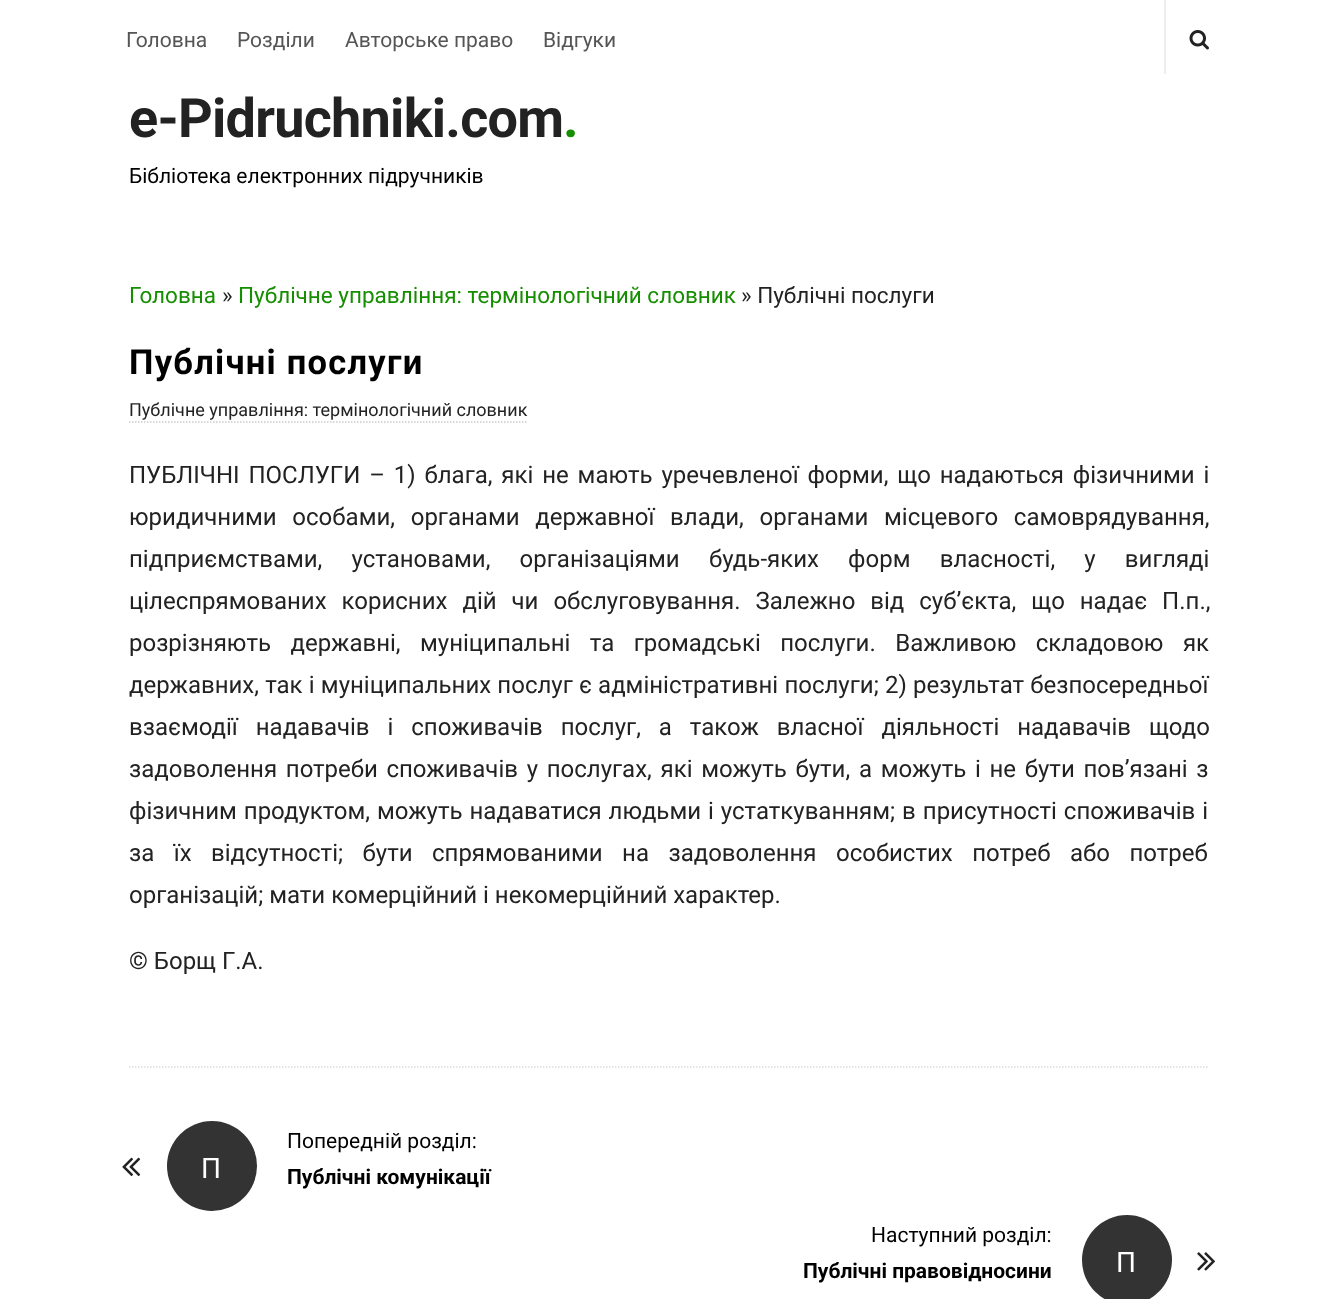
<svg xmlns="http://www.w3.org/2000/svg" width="1337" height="1299">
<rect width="100%" height="100%" fill="#fff"/>
<text x="126" y="47" style="font-family:Roboto;font-size:21px;fill:#555">Головна</text>
<text x="237" y="47" style="font-family:Roboto;font-size:21px;fill:#555">Розділи</text>
<text x="345" y="47" style="font-family:Roboto;font-size:21px;fill:#555">Авторське право</text>
<text x="543" y="47" style="font-family:Roboto;font-size:21px;fill:#555">Відгуки</text>
<rect x="1164" width="2" height="74" fill="#eee"/>
<image x="1189" y="30" width="20" height="20" href="media/1.png"/>
<text x="129" y="137" style="font-family:Roboto;font-size:54px;font-weight:bold;letter-spacing:-0.75px;fill:#222">e-Pidruchniki.com</text>
<text x="563" y="137" style="font-family:Roboto;font-size:54px;font-weight:bold;letter-spacing:-0.75px;fill:#168e01">.</text>
<text x="129" y="183" style="font-family:Roboto;font-size:21px;fill:#000">Бібліотека електронних підручників</text>
<text x="129" y="303" style="font-family:Roboto;font-size:22.5px;fill:#168e01">Головна</text>
<text x="222" y="303" style="font-family:Roboto;font-size:22.5px;fill:#222">»</text>
<text x="238" y="303" style="font-family:Roboto;font-size:22.5px;fill:#168e01">Публічне управління: термінологічний словник</text>
<text x="741" y="303" style="font-family:Roboto;font-size:22.5px;fill:#222">» Публічні послуги</text>
<path d="M129 1067h1080" fill="none" stroke="#ddd" stroke-width="1.5" stroke-dasharray="1.5 1.5"/>
<text x="129" y="374" style="font-family:Roboto;font-size:34.5px;font-weight:bold;letter-spacing:1.25px;fill:#000">Публічні послуги</text>
<text x="129" y="416" style="font-family:Roboto;font-size:18px;fill:#222">Публічне управління: термінологічний словник</text>
<path d="M129 422h399" fill="none" stroke="#ccc" stroke-width="1.5" stroke-dasharray="1.5 1.5"/>
<text x="129" y="483" word-spacing="2.9" style="font-family:Roboto;font-size:24px;fill:#222">ПУБЛІЧНІ ПОСЛУГИ – 1) блага, які не мають уречевленої форми, що надаються фізичними і</text>
<text x="129" y="525" word-spacing="9.75" style="font-family:Roboto;font-size:24px;fill:#222">юридичними особами, органами державної влади, органами місцевого самоврядування,</text>
<text x="129" y="567" word-spacing="23.25" style="font-family:Roboto;font-size:24px;fill:#222">підприємствами, установами, організаціями будь-яких форм власності, у вигляді</text>
<text x="129" y="609" word-spacing="9" style="font-family:Roboto;font-size:24px;fill:#222">цілеспрямованих корисних дій чи обслуговування. Залежно від суб’єкта, що надає П.п.,</text>
<text x="129" y="651" word-spacing="13.5" style="font-family:Roboto;font-size:24px;fill:#222">розрізняють державні, муніципальні та громадські послуги. Важливою складовою як</text>
<text x="129" y="693" word-spacing="0.25" style="font-family:Roboto;font-size:24px;fill:#222">державних, так і муніципальних послуг є адміністративні послуги; 2) результат безпосередньої</text>
<text x="129" y="735" word-spacing="12" style="font-family:Roboto;font-size:24px;fill:#222">взаємодії надавачів і споживачів послуг, а також власної діяльності надавачів щодо</text>
<text x="129" y="777" word-spacing="2.75" style="font-family:Roboto;font-size:24px;fill:#222">задоволення потреби споживачів у послугах, які можуть бути, а можуть і не бути пов’язані з</text>
<text x="129" y="819" word-spacing="1" style="font-family:Roboto;font-size:24px;fill:#222">фізичним продуктом, можуть надаватися людьми і устаткуванням; в присутності споживачів і</text>
<text x="129" y="861" word-spacing="13.5" style="font-family:Roboto;font-size:24px;fill:#222">за їх відсутності; бути спрямованими на задоволення особистих потреб або потреб</text>
<text x="129" y="903" style="font-family:Roboto;font-size:24px;fill:#222">організацій; мати комерційний і некомерційний характер.</text>
<text x="129" y="969" style="font-family:Roboto;font-size:24px;fill:#222">© Борщ Г.А.</text>
<image x="122" y="1157" width="19" height="19" href="media/2.png"/>
<circle cx="212" cy="1166" r="45" fill="#333"/>
<text x="201" y="1178" style="font-family:Roboto;font-size:28px;fill:#fff">П</text>
<text x="287" y="1148" style="font-family:Roboto;font-size:21px;fill:#000">Попередній розділ:</text>
<text x="287" y="1184" style="font-family:Roboto;font-size:21px;font-weight:bold;fill:#000">Публічні комунікації</text>
<text x="871" y="1242" style="font-family:Roboto;font-size:21px;fill:#000">Наступний розділ:</text>
<text x="803" y="1278" style="font-family:Roboto;font-size:21px;font-weight:bold;fill:#000">Публічні правовідносини</text>
<circle cx="1127" cy="1260" r="45" fill="#333"/>
<text x="1116" y="1272" style="font-family:Roboto;font-size:28px;fill:#fff">П</text>
<image x="1197" y="1252" width="18" height="19" href="media/3.png"/>
</svg>
